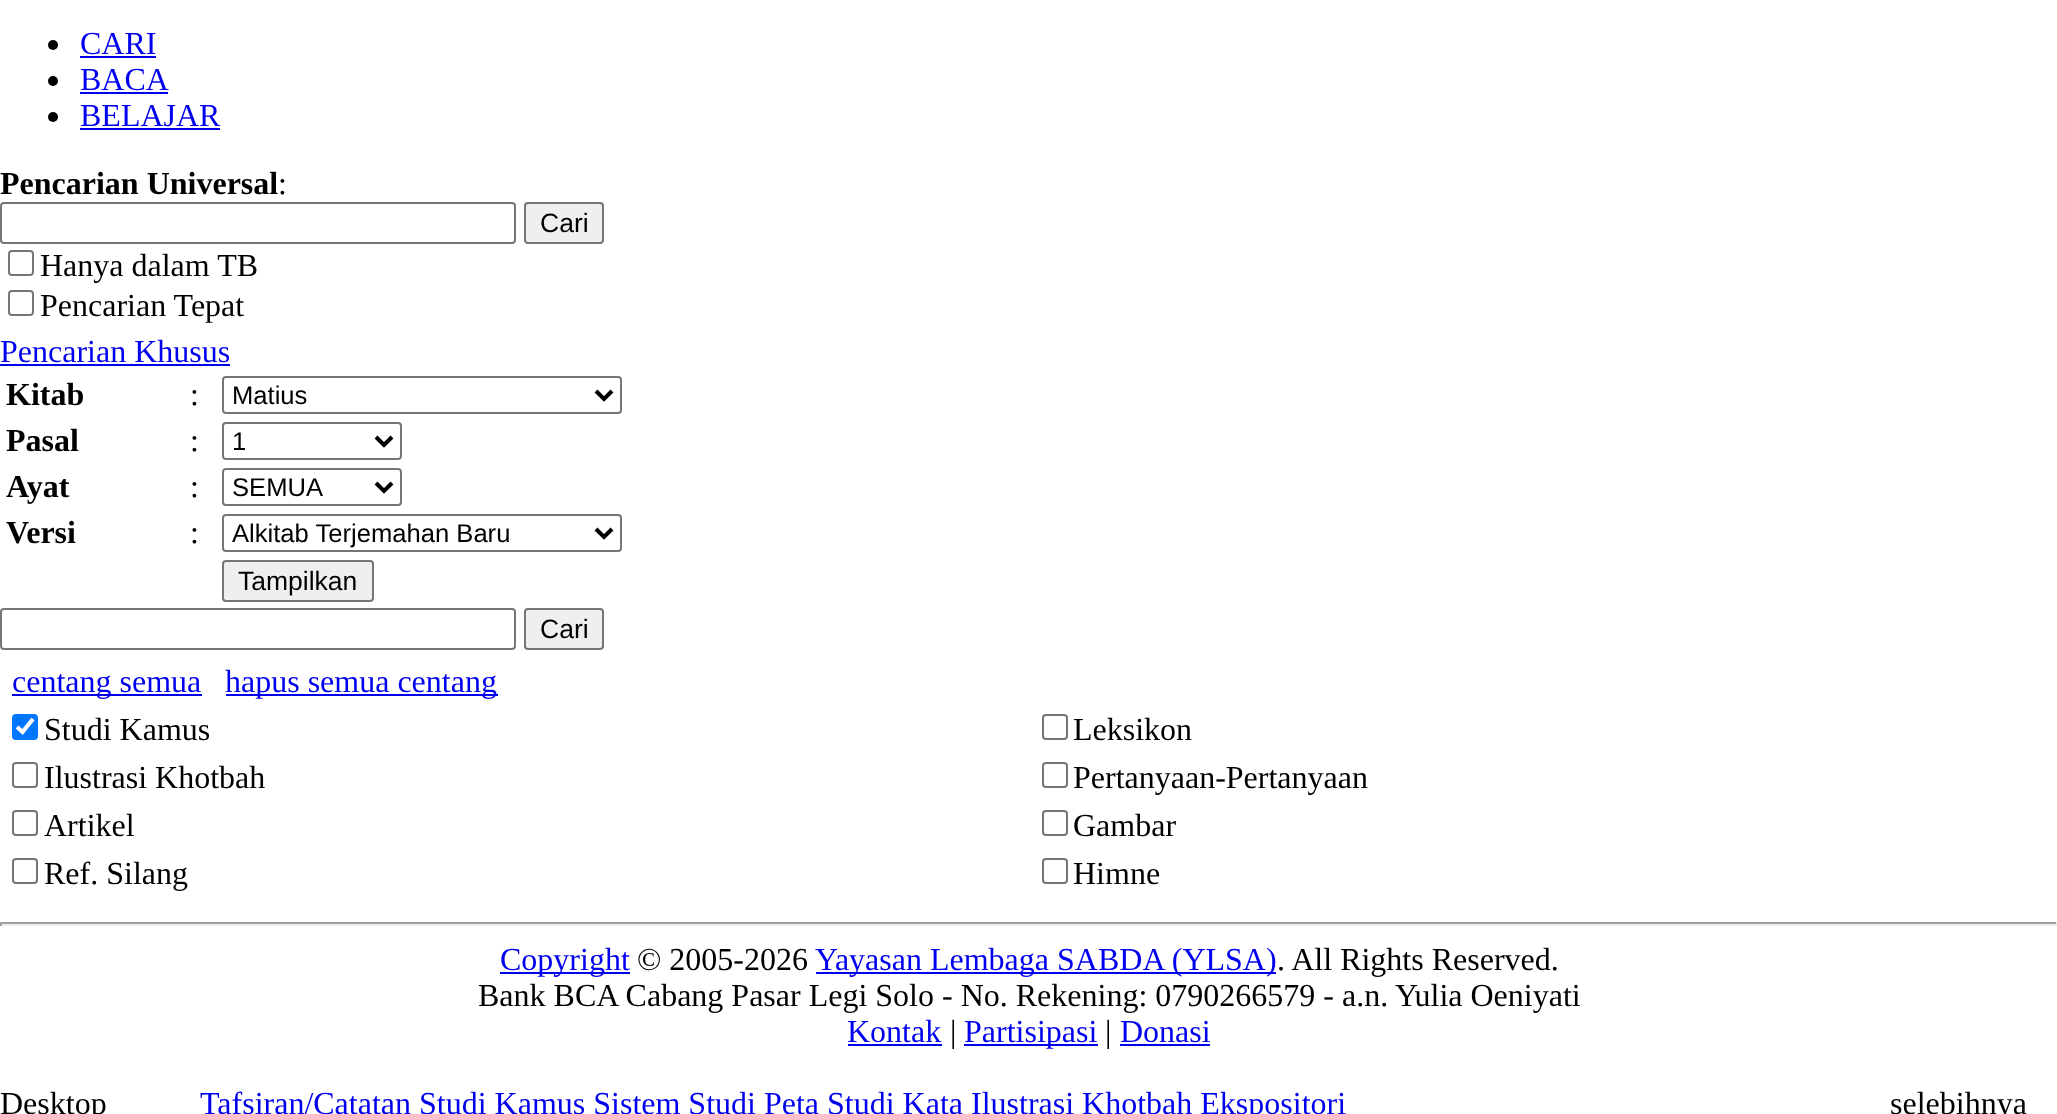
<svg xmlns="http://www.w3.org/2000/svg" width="2057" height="1114">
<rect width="100%" height="100%" fill="#fff"/>
<circle cx="53" cy="45" r="5" fill="#000"/>
<text x="80" y="54" style="font-family:Liberation Serif;font-size:32px;fill:#00e">CARI</text>
<rect x="80" y="56" width="76" height="2" fill="#00e"/>
<circle cx="53" cy="81" r="5" fill="#000"/>
<text x="80" y="90" style="font-family:Liberation Serif;font-size:32px;fill:#00e">BACA</text>
<rect x="80" y="92" width="88" height="2" fill="#00e"/>
<circle cx="53" cy="117" r="5" fill="#000"/>
<text x="80" y="126" style="font-family:Liberation Serif;font-size:32px;fill:#00e">BELAJAR</text>
<rect x="80" y="128" width="140" height="2" fill="#00e"/>
<text x="0" y="194" style="font-family:Liberation Serif;font-size:32px;font-weight:bold;fill:#000">Pencarian Universal</text>
<text x="278" y="194" style="font-family:Liberation Serif;font-size:32px;fill:#000">:</text>
<rect x="1" y="203" width="514" height="40" rx="3" fill="none" stroke="#767676" stroke-width="2"/>
<rect x="525" y="203" width="78" height="40" rx="3" fill="#efefef" stroke="#767676" stroke-width="2"/>
<text x="540" y="232" style="font-family:Liberation Sans;font-size:26.5px;fill:#000">Cari</text>
<rect x="9" y="251" width="24" height="24" rx="3" fill="none" stroke="#767676" stroke-width="2"/>
<text x="40" y="276" style="font-family:Liberation Serif;font-size:32px;fill:#000">Hanya dalam TB</text>
<rect x="9" y="291" width="24" height="24" rx="3" fill="none" stroke="#767676" stroke-width="2"/>
<text x="40" y="316" style="font-family:Liberation Serif;font-size:32px;fill:#000">Pencarian Tepat</text>
<text x="0" y="362" style="font-family:Liberation Serif;font-size:32px;fill:#00e">Pencarian Khusus</text>
<rect y="364" width="230" height="2" fill="#00e"/>
<text x="6" y="405" style="font-family:Liberation Serif;font-size:32px;font-weight:bold;fill:#000">Kitab</text>
<text x="190" y="405" style="font-family:Liberation Serif;font-size:32px;fill:#000">:</text>
<rect x="223" y="377" width="398" height="36" rx="3" fill="none" stroke="#767676" stroke-width="2"/>
<path d="M596 391l8 8l8-8" fill="none" stroke="#000" stroke-width="4"/>
<text x="232" y="404" style="font-family:Liberation Sans;font-size:25.6px;fill:#000">Matius</text>
<text x="6" y="451" style="font-family:Liberation Serif;font-size:32px;font-weight:bold;fill:#000">Pasal</text>
<text x="190" y="451" style="font-family:Liberation Serif;font-size:32px;fill:#000">:</text>
<rect x="223" y="423" width="178" height="36" rx="3" fill="none" stroke="#767676" stroke-width="2"/>
<path d="M376 437l8 8l8-8" fill="none" stroke="#000" stroke-width="4"/>
<text x="232" y="450" style="font-family:Liberation Sans;font-size:25.6px;fill:#000">1</text>
<text x="6" y="497" style="font-family:Liberation Serif;font-size:32px;font-weight:bold;fill:#000">Ayat</text>
<text x="190" y="497" style="font-family:Liberation Serif;font-size:32px;fill:#000">:</text>
<rect x="223" y="469" width="178" height="36" rx="3" fill="none" stroke="#767676" stroke-width="2"/>
<path d="M376 483l8 8l8-8" fill="none" stroke="#000" stroke-width="4"/>
<text x="232" y="496" style="font-family:Liberation Sans;font-size:25.6px;fill:#000">SEMUA</text>
<text x="6" y="543" style="font-family:Liberation Serif;font-size:32px;font-weight:bold;fill:#000">Versi</text>
<text x="190" y="543" style="font-family:Liberation Serif;font-size:32px;fill:#000">:</text>
<rect x="223" y="515" width="398" height="36" rx="3" fill="none" stroke="#767676" stroke-width="2"/>
<path d="M596 529l8 8l8-8" fill="none" stroke="#000" stroke-width="4"/>
<text x="232" y="542" style="font-family:Liberation Sans;font-size:25.6px;fill:#000">Alkitab Terjemahan Baru</text>
<rect x="223" y="561" width="150" height="40" rx="3" fill="#efefef" stroke="#767676" stroke-width="2"/>
<text x="238" y="590" style="font-family:Liberation Sans;font-size:26.5px;fill:#000">Tampilkan</text>
<rect x="1" y="609" width="514" height="40" rx="3" fill="none" stroke="#767676" stroke-width="2"/>
<rect x="525" y="609" width="78" height="40" rx="3" fill="#efefef" stroke="#767676" stroke-width="2"/>
<text x="540" y="638" style="font-family:Liberation Sans;font-size:26.5px;fill:#000">Cari</text>
<rect x="12" y="694" width="190" height="2" fill="#00e"/>
<text x="12" y="692" style="font-family:Liberation Serif;font-size:32px;fill:#00e">centang semua</text>
<rect x="226" y="694" width="272" height="2" fill="#00e"/>
<text x="225" y="692" style="font-family:Liberation Serif;font-size:32px;fill:#00e">hapus semua centang</text>
<rect x="12" y="714" width="26" height="26" rx="4" fill="#0075ff"/>
<path d="M17 727l5.5 5l10.5-13" fill="none" stroke="#fff" stroke-width="4.2"/>
<text x="44" y="740" style="font-family:Liberation Serif;font-size:32px;fill:#000">Studi Kamus</text>
<rect x="1043" y="715" width="24" height="24" rx="3" fill="none" stroke="#767676" stroke-width="2"/>
<text x="1073" y="740" style="font-family:Liberation Serif;font-size:32px;fill:#000">Leksikon</text>
<rect x="13" y="763" width="24" height="24" rx="3" fill="none" stroke="#767676" stroke-width="2"/>
<text x="44" y="788" style="font-family:Liberation Serif;font-size:32px;fill:#000">Ilustrasi Khotbah</text>
<rect x="1043" y="763" width="24" height="24" rx="3" fill="none" stroke="#767676" stroke-width="2"/>
<text x="1073" y="788" style="font-family:Liberation Serif;font-size:32px;fill:#000">Pertanyaan-Pertanyaan</text>
<rect x="13" y="811" width="24" height="24" rx="3" fill="none" stroke="#767676" stroke-width="2"/>
<text x="44" y="836" style="font-family:Liberation Serif;font-size:32px;fill:#000">Artikel</text>
<rect x="1043" y="811" width="24" height="24" rx="3" fill="none" stroke="#767676" stroke-width="2"/>
<text x="1073" y="836" style="font-family:Liberation Serif;font-size:32px;fill:#000">Gambar</text>
<rect x="13" y="859" width="24" height="24" rx="3" fill="none" stroke="#767676" stroke-width="2"/>
<text x="44" y="884" style="font-family:Liberation Serif;font-size:32px;fill:#000">Ref. Silang</text>
<rect x="1043" y="859" width="24" height="24" rx="3" fill="none" stroke="#767676" stroke-width="2"/>
<text x="1073" y="884" style="font-family:Liberation Serif;font-size:32px;fill:#000">Himne</text>
<rect y="922" width="2057" height="2" fill="#9f9f9f"/>
<rect x="2056" y="922" width="1" height="4" fill="#eee"/>
<rect y="924" width="2057" height="2" fill="#eee"/>
<rect y="922" width="2" height="4" fill="#9f9f9f"/>
<rect x="500" y="972" width="130" height="2" fill="#00e"/>
<text x="500" y="970" style="font-family:Liberation Serif;font-size:32px;fill:#00e">Copyright</text>
<text x="637" y="970" style="font-family:Liberation Serif;font-size:32px;fill:#000">© 2005-2026</text>
<rect x="816" y="972" width="460" height="2" fill="#00e"/>
<text x="815" y="970" style="font-family:Liberation Serif;font-size:32px;fill:#00e">Yayasan Lembaga SABDA (YLSA)</text>
<text x="1277" y="970" style="font-family:Liberation Serif;font-size:32px;fill:#000">. All Rights Reserved.</text>
<text x="478" y="1006" style="font-family:Liberation Serif;font-size:32px;fill:#000">Bank BCA Cabang Pasar Legi Solo - No. Rekening: 0790266579 - a.n. Yulia Oeniyati</text>
<text x="847" y="1042" style="font-family:Liberation Serif;font-size:32px;fill:#00e">Kontak</text>
<rect x="848" y="1044" width="94" height="2" fill="#00e"/>
<text x="950" y="1042" style="font-family:Liberation Serif;font-size:32px;fill:#000">|</text>
<rect x="964" y="1044" width="134" height="2" fill="#00e"/>
<text x="964" y="1042" style="font-family:Liberation Serif;font-size:32px;fill:#00e">Partisipasi</text>
<text x="1105" y="1042" style="font-family:Liberation Serif;font-size:32px;fill:#000">|</text>
<text x="1120" y="1042" style="font-family:Liberation Serif;font-size:32px;fill:#00e">Donasi</text>
<rect x="1120" y="1044" width="90" height="2" fill="#00e"/>
<text x="0" y="1114" style="font-family:Liberation Serif;font-size:32px;fill:#000">Desktop</text>
<text x="200" y="1114" style="font-family:Liberation Serif;font-size:32px;fill:#00e">Tafsiran/Catatan Studi Kamus Sistem Studi Peta Studi Kata Ilustrasi Khotbah Ekspositori</text>
<text x="1890" y="1114" style="font-family:Liberation Serif;font-size:32px;fill:#000">selebihnya</text>
</svg>
